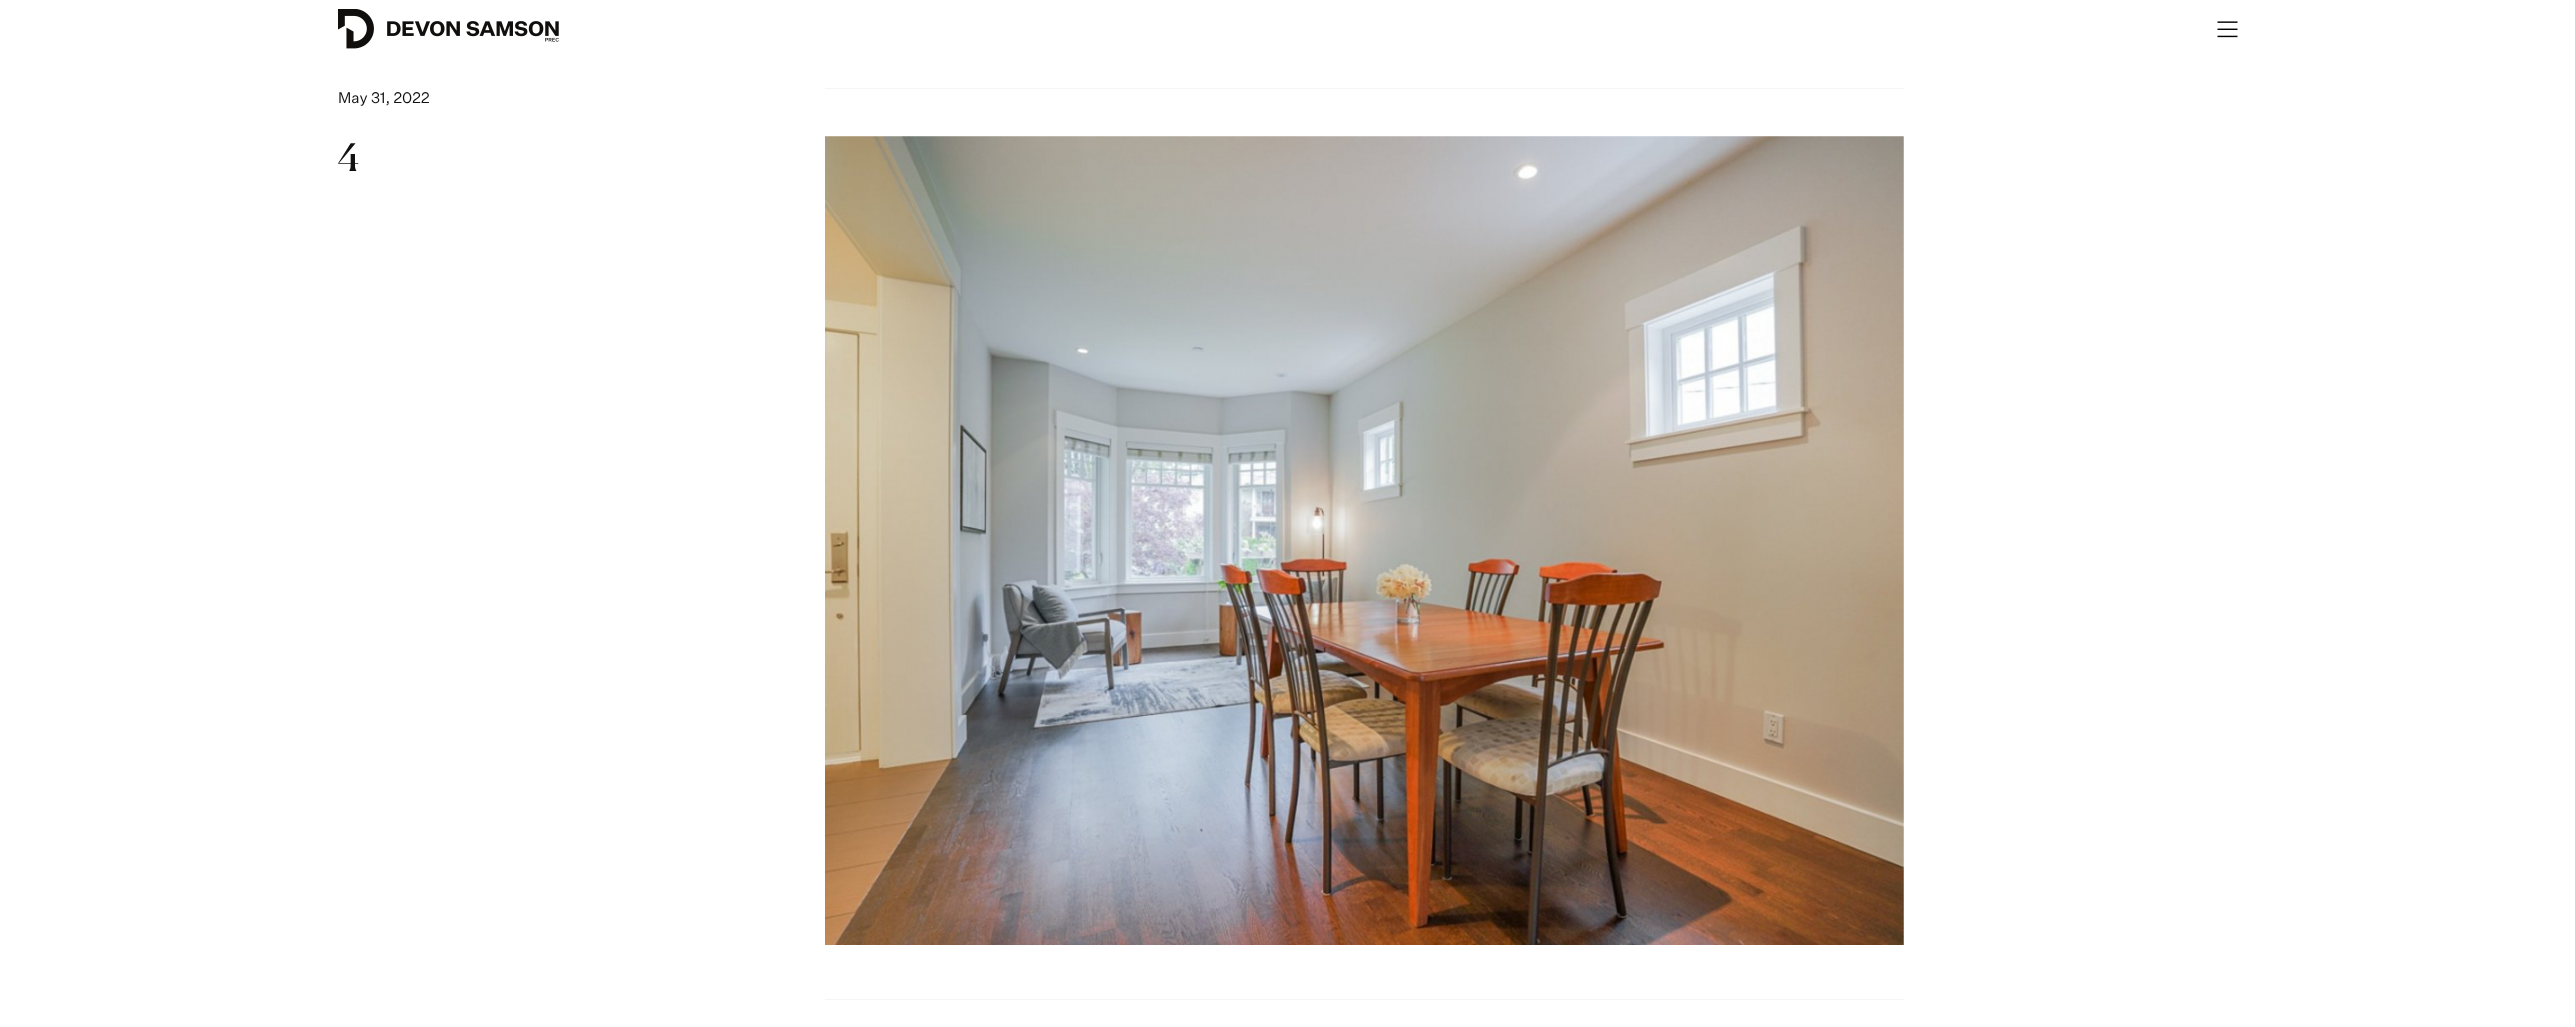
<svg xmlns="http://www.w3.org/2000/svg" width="2575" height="1027">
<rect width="100%" height="100%" fill="#fff"/>
<image x="338" y="9" width="221" height="40" href="media/1.png"/>
<image x="2217" y="21" width="21" height="17" href="media/2.png"/>
<text x="338" y="103" style="font-family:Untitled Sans;font-size:15px;fill:#111">May 31, 2022</text>
<text x="338" y="171" style="font-family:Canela;font-size:38px;fill:#111">4</text>
<rect x="825" y="88" width="1079" height="1" fill="#f5f5f7"/>
<rect x="825" y="999" width="1079" height="1" fill="#f5f5f7"/>
<image x="825" y="136" width="1079" height="809" href="media/3.png"/>
</svg>
